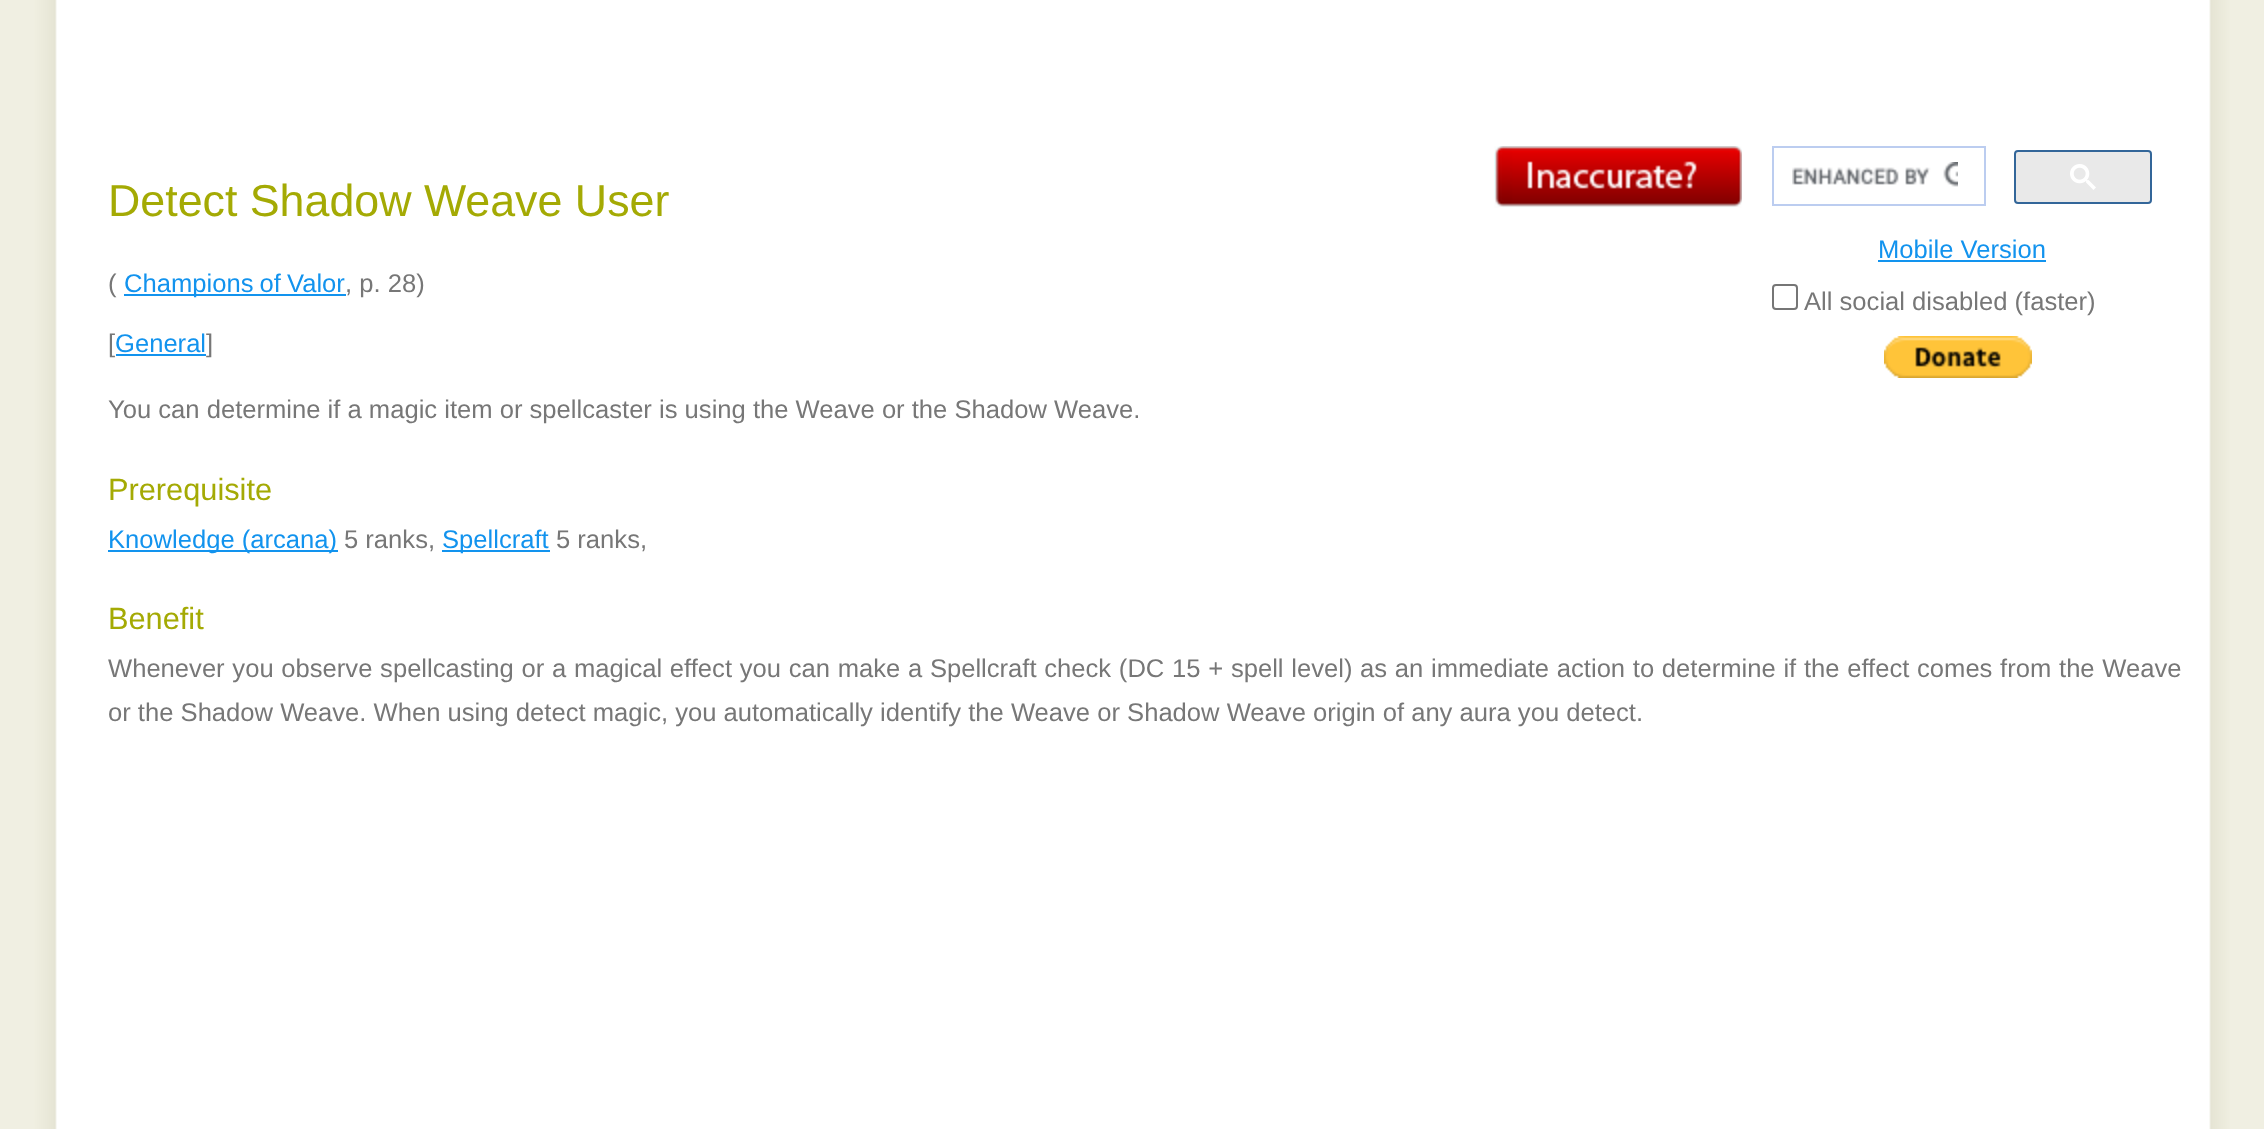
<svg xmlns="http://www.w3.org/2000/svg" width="2264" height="1129">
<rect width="100%" height="100%" fill="#f0efe2"/>
<image x="34" y="0" width="2196" height="1129" href="media/1.png"/>
<text x="108" y="216" style="font-family:Liberation Sans;font-size:44.75px;fill:#a4aa04">Detect Shadow Weave User</text>
<image x="1494" y="146" width="248" height="62" href="media/2.png"/>
<text x="108" y="292" style="font-family:Liberation Sans;font-size:25.6px;fill:#777">(</text>
<rect x="124" y="294" width="222" height="2" fill="#1293ee"/>
<text x="124" y="292" word-spacing="-1" style="font-family:Liberation Sans;font-size:25.6px;fill:#1293ee">Champions of Valor</text>
<text x="345" y="292" style="font-family:Liberation Sans;font-size:25.6px;fill:#777">, p. 28)</text>
<text x="108" y="352" style="font-family:Liberation Sans;font-size:25.6px;fill:#777">[</text>
<text x="115" y="352" style="font-family:Liberation Sans;font-size:25.6px;fill:#1293ee">General</text>
<rect x="116" y="354" width="90" height="2" fill="#1293ee"/>
<text x="206" y="352" style="font-family:Liberation Sans;font-size:25.6px;fill:#777">]</text>
<text x="108" y="418" style="font-family:Liberation Sans;font-size:25.6px;fill:#777">You can determine if a magic item or spellcaster is using the Weave or the Shadow Weave.</text>
<text x="108" y="500" style="font-family:Liberation Sans;font-size:30.75px;fill:#a4aa04">Prerequisite</text>
<rect x="108" y="550" width="230" height="2" fill="#1293ee"/>
<text x="108" y="548" style="font-family:Liberation Sans;font-size:25.6px;fill:#1293ee">Knowledge (arcana)</text>
<text x="344" y="548" style="font-family:Liberation Sans;font-size:25.6px;fill:#777">5 ranks,</text>
<rect x="442" y="550" width="108" height="2" fill="#1293ee"/>
<text x="442" y="548" style="font-family:Liberation Sans;font-size:25.6px;fill:#1293ee">Spellcraft</text>
<text x="556" y="548" style="font-family:Liberation Sans;font-size:25.6px;fill:#777">5 ranks,</text>
<text x="108" y="629" style="font-family:Liberation Sans;font-size:30.75px;fill:#a4aa04">Benefit</text>
<text x="108" y="677" word-spacing="0.6" style="font-family:Liberation Sans;font-size:25.6px;fill:#777">Whenever you observe spellcasting or a magical effect you can make a Spellcraft check (DC 15 + spell level) as an immediate action to determine if the effect comes from the Weave</text>
<text x="108" y="721" style="font-family:Liberation Sans;font-size:25.6px;fill:#777">or the Shadow Weave. When using detect magic, you automatically identify the Weave or Shadow Weave origin of any aura you detect.</text>
<rect x="1773" y="147" width="212" height="58" fill="none" stroke="#bccdf0" stroke-width="2"/>
<image x="1792" y="162" width="166" height="25" href="media/3.png"/>
<rect x="2015" y="151" width="136" height="52" rx="3" fill="#e9e9e9" stroke="#369" stroke-width="2"/>
<image x="2070" y="164" width="26" height="26" href="media/4.png"/>
<text x="1878" y="258" style="font-family:Liberation Sans;font-size:25.6px;fill:#1293ee">Mobile Version</text>
<rect x="1878" y="260" width="168" height="2" fill="#1293ee"/>
<rect x="1773" y="285" width="24" height="24" rx="3" fill="none" stroke="#767676" stroke-width="2"/>
<text x="1804" y="310" style="font-family:Liberation Sans;font-size:25.6px;fill:#777">All social disabled (faster)</text>
<image x="1884" y="336" width="148" height="42" href="media/5.png"/>
</svg>
